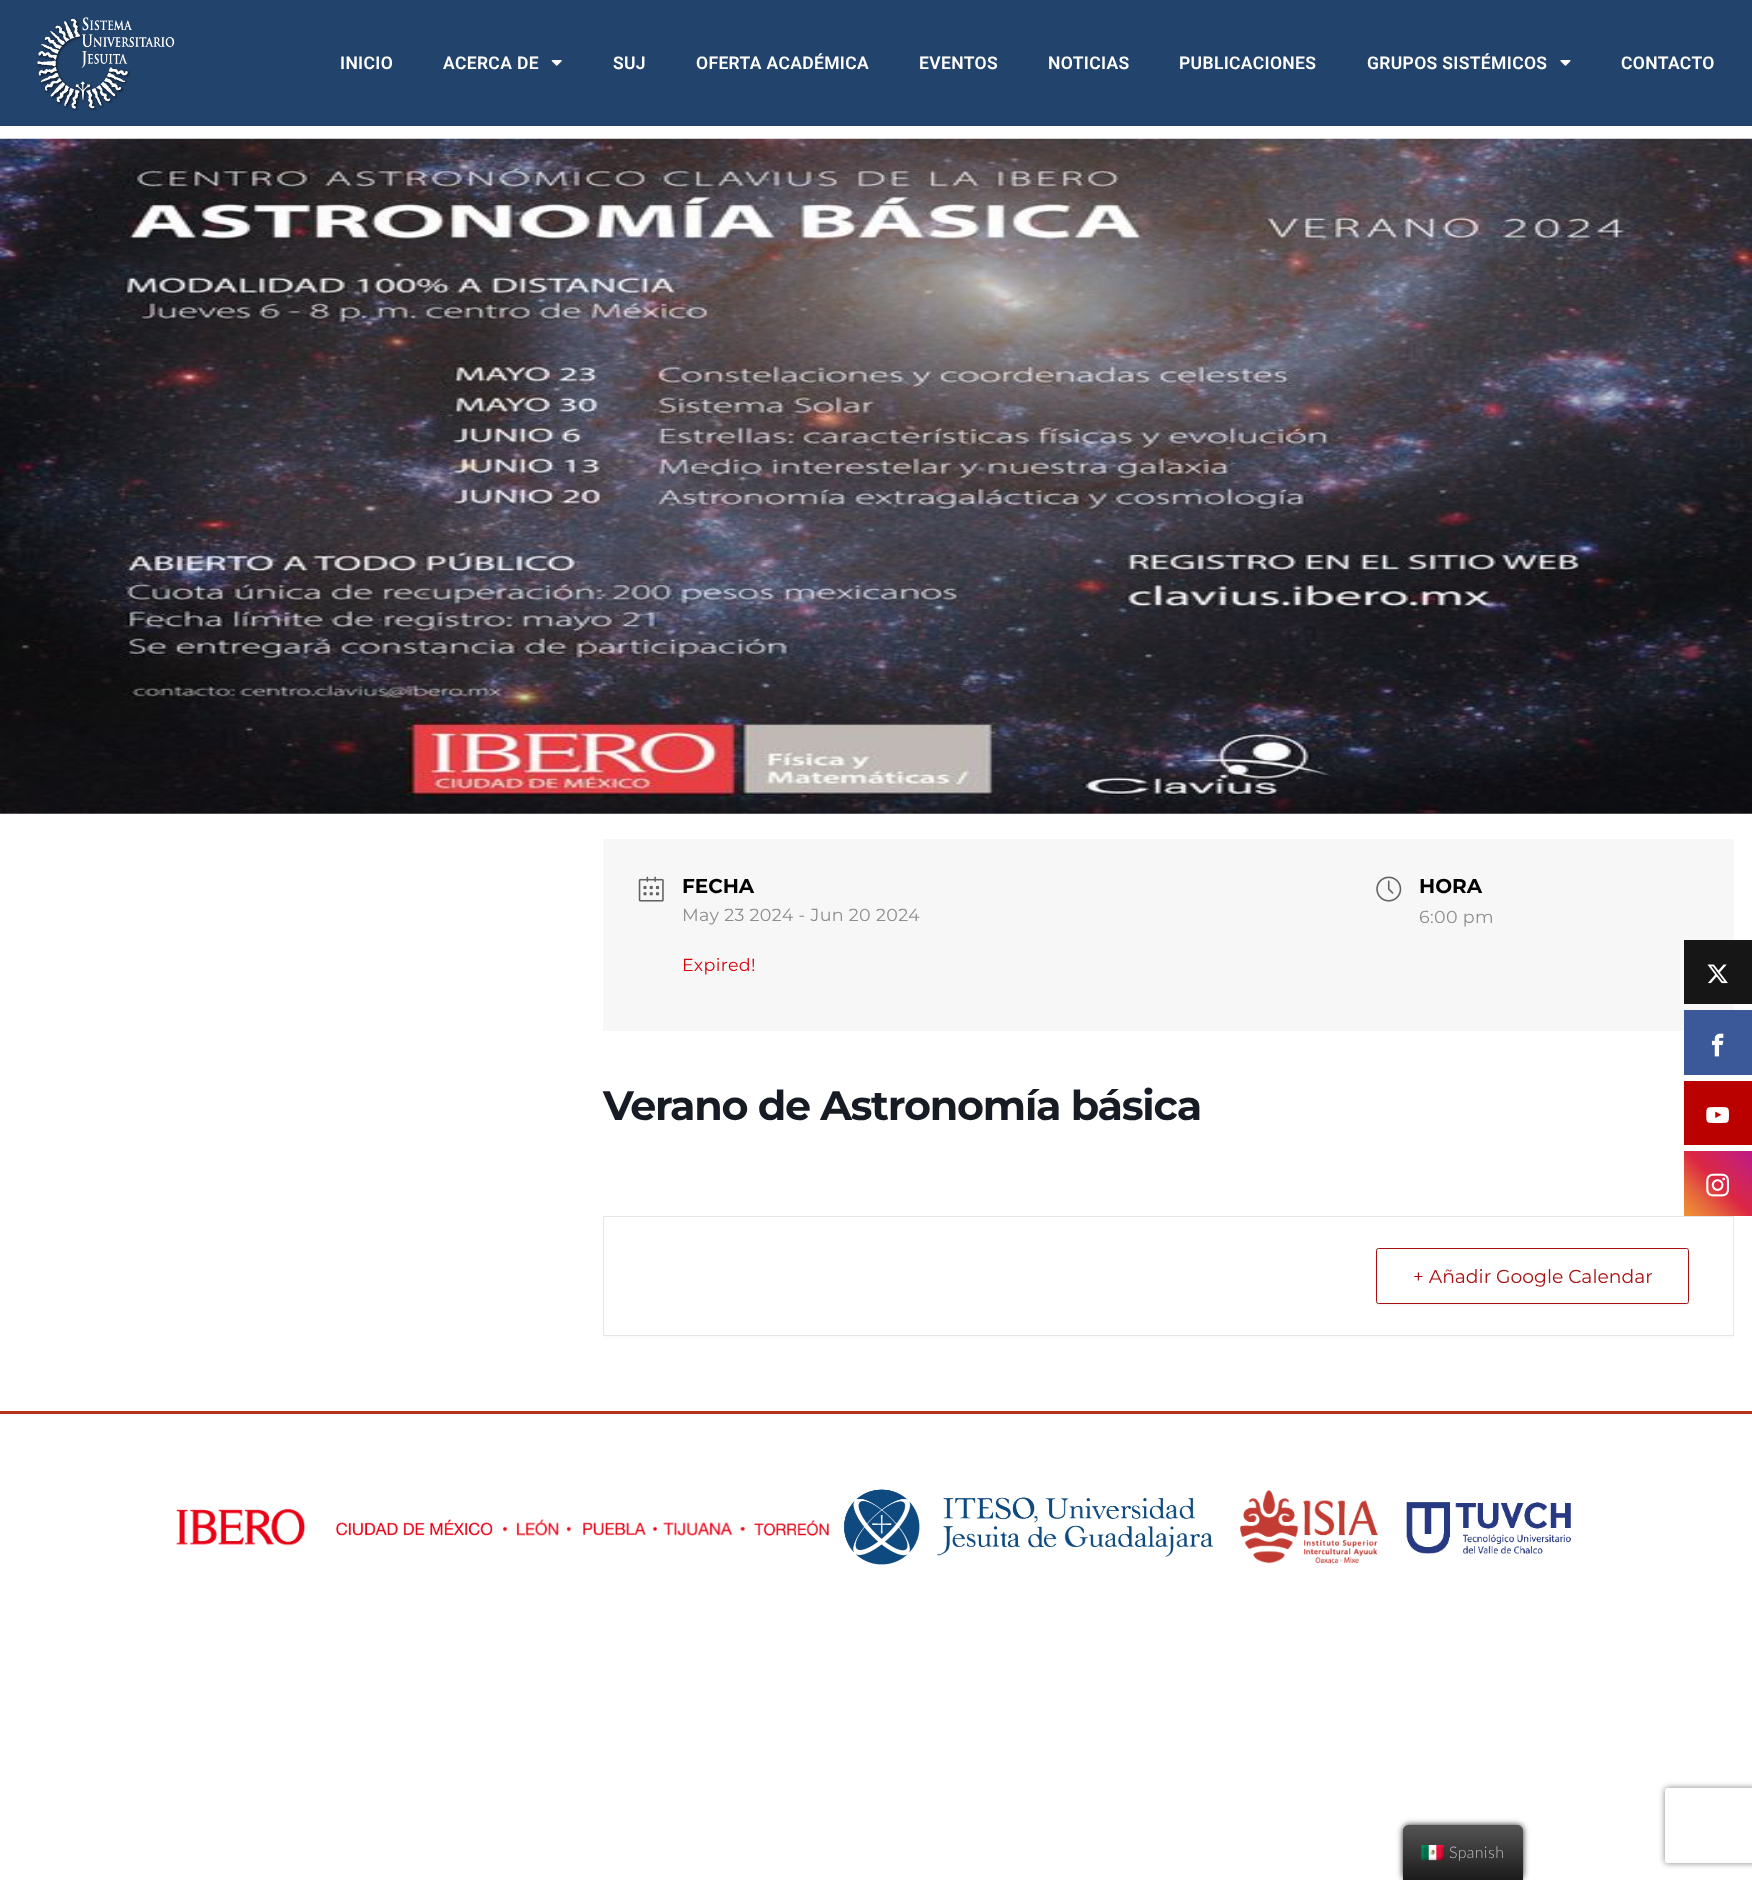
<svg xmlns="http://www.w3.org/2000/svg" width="1752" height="1880">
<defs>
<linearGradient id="g1" gradientUnits="userSpaceOnUse" x1="1685" y1="1217" x2="1752" y2="1150"><stop offset="0" stop-color="#f09433"/><stop offset="0.25" stop-color="#e6683c"/><stop offset="0.5" stop-color="#dc2743"/><stop offset="0.75" stop-color="#cc2366"/><stop offset="1" stop-color="#bc1888"/></linearGradient>
<linearGradient id="g2" gradientUnits="userSpaceOnUse" x1="1463" y1="1880" x2="1463" y2="1825"><stop offset="0" stop-color="#1b1b1b"/><stop offset="1" stop-color="#545454"/></linearGradient>
<clipPath id="clip1"><path d="M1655 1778h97v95h-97zm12.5 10h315c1.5 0 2.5 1 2.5 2.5v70c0 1.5-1 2.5-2.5 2.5h-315c-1.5 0-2.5-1-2.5-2.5v-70c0-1.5 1-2.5 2.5-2.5z" clip-rule="evenodd"/></clipPath>
</defs>
<rect width="100%" height="100%" fill="#fff"/>
<rect width="1752" height="126" fill="#22436c"/>
<image x="37" y="17" width="138" height="94" href="media/1.png"/>
<text x="340" y="69" style="font-family:Roboto;font-size:17.5px;font-weight:600;letter-spacing:0.35px;fill:#fff">INICIO</text>
<text x="443" y="69" style="font-family:Roboto;font-size:17.5px;font-weight:600;letter-spacing:0.35px;fill:#fff">ACERCA DE</text>
<image x="551" y="60" width="11" height="6" href="media/2.png"/>
<text x="613" y="69" style="font-family:Roboto;font-size:17.5px;font-weight:600;letter-spacing:0.35px;fill:#fff">SUJ</text>
<text x="696" y="69" style="font-family:Roboto;font-size:17.5px;font-weight:600;letter-spacing:0.35px;fill:#fff">OFERTA ACADÉMICA</text>
<text x="919" y="69" style="font-family:Roboto;font-size:17.5px;font-weight:600;letter-spacing:0.35px;fill:#fff">EVENTOS</text>
<text x="1048" y="69" style="font-family:Roboto;font-size:17.5px;font-weight:600;letter-spacing:0.35px;fill:#fff">NOTICIAS</text>
<text x="1179" y="69" style="font-family:Roboto;font-size:17.5px;font-weight:600;letter-spacing:0.35px;fill:#fff">PUBLICACIONES</text>
<text x="1367" y="69" style="font-family:Roboto;font-size:17.5px;font-weight:600;letter-spacing:0.35px;fill:#fff">GRUPOS SISTÉMICOS</text>
<image x="1560" y="60" width="11" height="6" href="media/3.png"/>
<text x="1621" y="69" style="font-family:Roboto;font-size:17.5px;font-weight:600;letter-spacing:0.35px;fill:#fff">CONTACTO</text>
<image x="0" y="138" width="1752" height="676" href="media/4.png"/>
<rect x="603" y="839" width="1131" height="192" fill="#f7f7f7"/>
<image x="638" y="876" width="26" height="26" href="media/5.png"/>
<text x="682" y="893" style="font-family:Montserrat;font-size:20px;font-weight:bold;fill:#000">FECHA</text>
<text x="682" y="921" style="font-family:Montserrat;font-size:17.5px;letter-spacing:0.35px;fill:#8d8d8d">May 23 2024 - Jun 20 2024</text>
<text x="682" y="971" style="font-family:Montserrat;font-size:17.5px;letter-spacing:0.35px;fill:#d8000c">Expired!</text>
<image x="1376" y="876" width="26" height="26" href="media/6.png"/>
<text x="1419" y="893" style="font-family:Montserrat;font-size:20px;font-weight:bold;fill:#000">HORA</text>
<text x="1419" y="923" style="font-family:Montserrat;font-size:17.5px;letter-spacing:0.35px;fill:#8d8d8d">6:00 pm</text>
<text x="603" y="1120" style="font-family:Montserrat;font-size:41.25px;font-weight:bold;letter-spacing:-1.25px;fill:#171c24">Verano de Astronomía básica</text>
<path d="M603 1336v3h1131v-120v117z" fill="#fbfbfb"/>
<rect x="603.5" y="1216.5" width="1130" height="119" fill="none" stroke="#e6e6e6"/>
<path d="M1376 1251v53c0 1 1 2 2 2h308c2 0 3-1 3-2v-53v50c0 2-1 3-3 3h-307c-2 0-3-1-3-3z" fill="#f7f7f7"/>
<rect x="1376.5" y="1248.5" width="312" height="55" rx="2" fill="none" stroke="#a81010"/>
<text x="1413" y="1283" style="font-family:Montserrat;font-size:18.75px;fill:#a81010">+ Añadir Google Calendar</text>
<rect x="1684" y="940" width="68" height="64" fill="#161616"/>
<image x="1707" y="964" width="21" height="20" href="media/7.png"/>
<rect x="1684" y="1010" width="68" height="65" fill="#3b5998"/>
<image x="1711" y="1033" width="13" height="24" href="media/8.png"/>
<rect x="1684" y="1081" width="68" height="64" fill="#b00"/>
<image x="1706" y="1107" width="23" height="17" href="media/9.png"/>
<rect x="1684" y="1151" width="68" height="65" fill="url(#g1)"/>
<image x="1706" y="1173" width="23" height="24" href="media/10.png"/>
<rect y="1411" width="1752" height="3" fill="#b63218"/>
<image x="176" y="1508" width="129" height="38" href="media/11.png"/>
<image x="336" y="1519" width="157" height="17" href="media/12.png"/>
<image x="502" y="1519" width="70" height="17" href="media/13.png"/>
<image x="583" y="1522" width="74" height="14" href="media/14.png"/>
<image x="663" y="1522" width="83" height="14" href="media/15.png"/>
<image x="753" y="1520" width="76" height="16" href="media/16.png"/>
<image x="844" y="1489" width="369" height="76" href="media/17.png"/>
<image x="1240" y="1490" width="139" height="74" href="media/18.png"/>
<image x="1406" y="1502" width="165" height="52" href="media/19.png"/>
<rect x="1403" y="1825" width="120" height="55" rx="6" fill="#212121" filter="blur(3px)"/>
<path d="M1409 1825h108c3.5 0 6 2.5 6 6v49h-120v-49c0-3.5 2.5-6 6-6z" fill="url(#g2)"/>
<image x="1421" y="1845" width="23" height="16" href="media/20.png"/>
<text x="1449" y="1858" style="font-family:Lato;font-size:16px;font-weight:300;letter-spacing:0.35px;fill:#bdbdbd">Spanish</text>
<g clip-path="url(#clip1)">
<rect x="1665" y="1788" width="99" height="75" rx="2.5" fill="#808080" filter="blur(3px)"/>
</g>
</svg>
